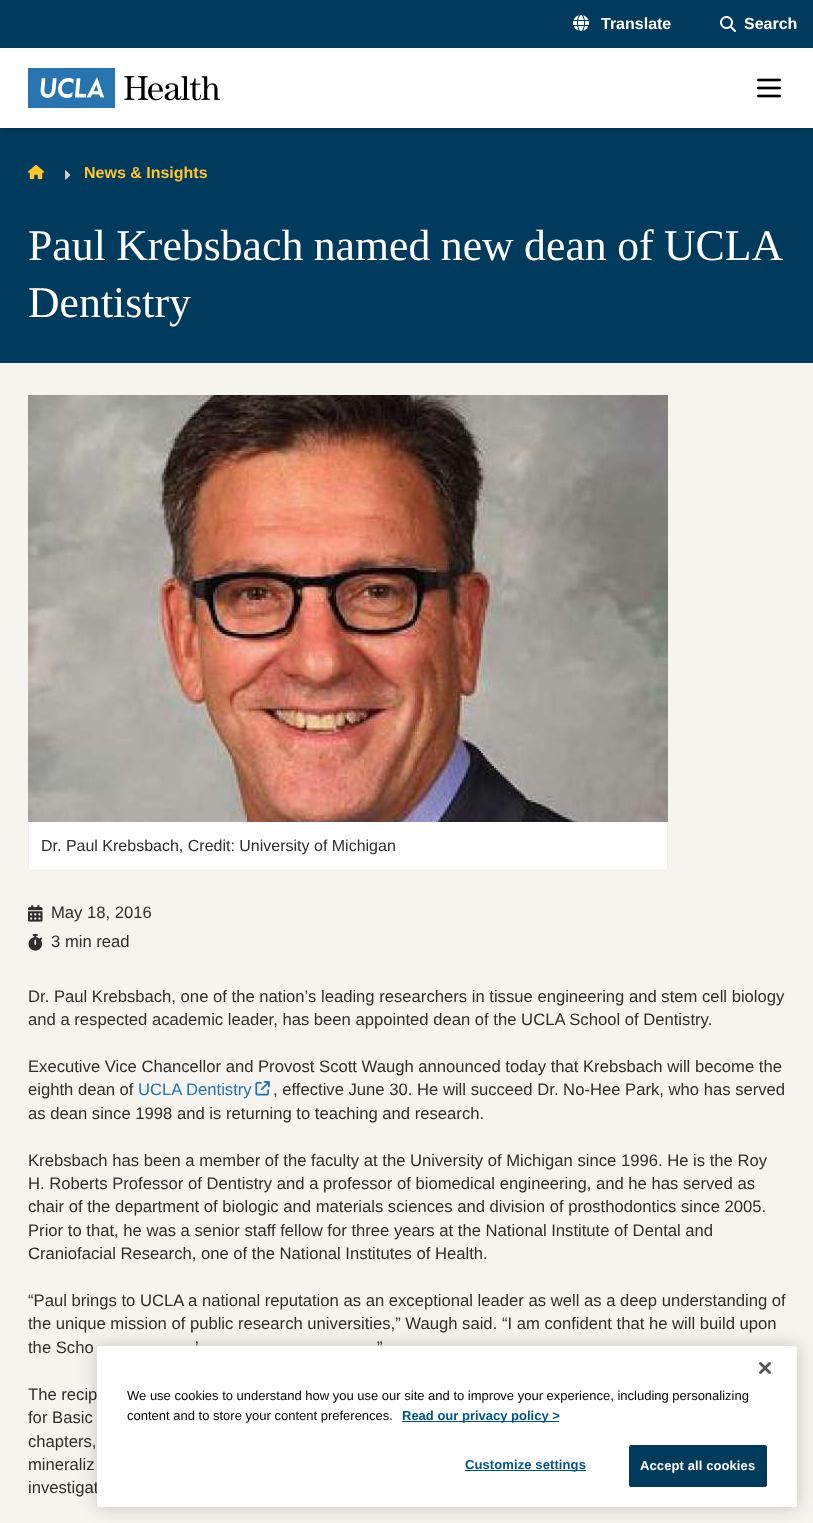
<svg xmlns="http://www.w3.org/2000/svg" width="813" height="1523">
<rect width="100%" height="100%" fill="#f6f4ee"/>
<rect width="813" height="48" fill="#003a5c"/>
<image x="573" y="15" width="16" height="16" href="media/1.png"/>
<text x="601" y="29" style="font-family:Liberation Sans;font-size:16px;font-weight:bold;fill:#fff">Translate</text>
<image x="720" y="16" width="16" height="16" href="media/2.png"/>
<text x="744" y="29" style="font-family:Liberation Sans;font-size:16px;font-weight:bold;fill:#fff">Search</text>
<rect y="128" width="813" height="235" fill="#003a5c"/>
<rect x="2" y="52" width="809" height="76" fill="#0000001a" filter="blur(2px)"/>
<rect x="1" y="53" width="811" height="78" fill="#0000001a" filter="blur(3px)"/>
<rect y="48" width="813" height="80" fill="#fff"/>
<image x="28" y="68" width="192" height="40" href="media/3.png"/>
<image x="757" y="78" width="24" height="20" href="media/4.png"/>
<image x="28" y="164" width="16" height="16" href="media/5.png"/>
<image x="65" y="170" width="6" height="10" href="media/6.png"/>
<text x="84" y="178" style="font-family:Liberation Sans;font-size:16px;font-weight:bold;fill:#ffc72e">News &amp; Insights</text>
<text x="28" y="260" word-spacing="-0.5" style="font-family:Liberation Serif;font-size:43.75px;fill:#fff">Paul Krebsbach named new dean of UCLA</text>
<text x="28" y="317" style="font-family:Liberation Serif;font-size:43.75px;fill:#fff">Dentistry</text>
<image x="28" y="395" width="640" height="427" href="media/7.png"/>
<path d="M29 822h638v45c0 1.5-1.5 3-3 3h-632c-1.5 0-3-1.5-3-3z" fill="#fff"/>
<path d="M28 822h640v45c0 2-2 4-4 4h-632c-2 0-4-2-4-4zm1 0h638v45c0 2-1 3-3 3h-632c-2 0-3-1-3-3z" fill="#f0f0f0" fill-rule="evenodd"/>
<text x="41" y="851" style="font-family:Liberation Sans;font-size:16px;fill:#2e2e2e">Dr. Paul Krebsbach, Credit: University of Michigan</text>
<image x="28" y="905" width="15" height="17" href="media/8.png"/>
<text x="51" y="918" style="font-family:Liberation Sans;font-size:16.65px;fill:#2e2e2e">May 18, 2016</text>
<image x="28" y="934" width="14" height="17" href="media/9.png"/>
<text x="51" y="947" style="font-family:Liberation Sans;font-size:16.65px;fill:#2e2e2e">3 min read</text>
<text x="28" y="1002" style="font-family:Liberation Sans;font-size:16.65px;fill:#2e2e2e">Dr. Paul Krebsbach, one of the nation’s leading researchers in tissue engineering and stem cell biology</text>
<text x="28" y="1025" style="font-family:Liberation Sans;font-size:16.65px;fill:#2e2e2e">and a respected academic leader, has been appointed dean of the UCLA School of Dentistry.</text>
<text x="28" y="1072" style="font-family:Liberation Sans;font-size:16.65px;fill:#2e2e2e">Executive Vice Chancellor and Provost Scott Waugh announced today that Krebsbach will become the</text>
<text x="28" y="1095" style="font-family:Liberation Sans;font-size:16.65px;fill:#2e2e2e">eighth dean of</text>
<text x="138" y="1095" style="font-family:Liberation Sans;font-size:16.65px;fill:#2874af">UCLA</text>
<text x="186" y="1095" style="font-family:Liberation Sans;font-size:16.65px;fill:#2874af">Dentistry</text>
<image x="255" y="1081" width="15" height="15" href="media/10.png"/>
<text x="273" y="1095" style="font-family:Liberation Sans;font-size:16.65px;fill:#2e2e2e">, effective June 30. He will succeed Dr. No-Hee Park, who has served</text>
<text x="28" y="1119" style="font-family:Liberation Sans;font-size:16.65px;fill:#2e2e2e">as dean since 1998 and is returning to teaching and research.</text>
<text x="28" y="1166" style="font-family:Liberation Sans;font-size:16.65px;fill:#2e2e2e">Krebsbach has been a member of the faculty at the University of Michigan since 1996. He is the Roy</text>
<text x="28" y="1189" style="font-family:Liberation Sans;font-size:16.65px;fill:#2e2e2e">H. Roberts Professor of Dentistry and a professor of biomedical engineering, and he has served as</text>
<text x="28" y="1212" style="font-family:Liberation Sans;font-size:16.65px;fill:#2e2e2e">chair of the department of biologic and materials sciences and division of prosthodontics since 2005.</text>
<text x="28" y="1236" style="font-family:Liberation Sans;font-size:16.65px;fill:#2e2e2e">Prior to that, he was a senior staff fellow for three years at the National Institute of Dental and</text>
<text x="28" y="1259" style="font-family:Liberation Sans;font-size:16.65px;fill:#2e2e2e">Craniofacial Research, one of the National Institutes of Health.</text>
<text x="28" y="1306" style="font-family:Liberation Sans;font-size:16.65px;fill:#2e2e2e">“Paul brings to UCLA a national reputation as an exceptional leader as well as a deep understanding of</text>
<text x="28" y="1329" style="font-family:Liberation Sans;font-size:16.65px;fill:#2e2e2e">the unique mission of public research universities,” Waugh said. “I am confident that he will build upon</text>
<text x="28" y="1353" style="font-family:Liberation Sans;font-size:16.65px;fill:#2e2e2e">the Scho</text>
<text x="195" y="1353" style="font-family:Liberation Sans;font-size:16.65px;fill:#2e2e2e">’</text>
<text x="377" y="1353" style="font-family:Liberation Sans;font-size:16.65px;fill:#2e2e2e">”</text>
<text x="28" y="1400" style="font-family:Liberation Sans;font-size:16.65px;fill:#2e2e2e">The recip</text>
<text x="28" y="1423" style="font-family:Liberation Sans;font-size:16.65px;fill:#2e2e2e">for Basic</text>
<text x="28" y="1447" style="font-family:Liberation Sans;font-size:16.65px;fill:#2e2e2e">chapters,</text>
<text x="28" y="1470" style="font-family:Liberation Sans;font-size:16.65px;fill:#2e2e2e">mineraliz</text>
<text x="28" y="1493" style="font-family:Liberation Sans;font-size:16.65px;fill:#2e2e2e">investigat</text>
<rect x="97" y="1346" width="700" height="161" rx="2.5" fill="#00000033" filter="blur(9px)"/>
<rect x="97" y="1346" width="700" height="161" rx="2.5" fill="#fff"/>
<image x="759" y="1362" width="12" height="12" href="media/11.png"/>
<text x="127" y="1400" style="font-family:Liberation Sans;font-size:13px;fill:#000">We use cookies to understand how you use our site and to improve your experience, including personalizing</text>
<text x="127" y="1420" style="font-family:Liberation Sans;font-size:13px;fill:#000">content and to store your content preferences.</text>
<rect x="402" y="1421" width="157" height="1" fill="#005587"/>
<text x="402" y="1420" style="font-family:Liberation Sans;font-size:13px;font-weight:bold;fill:#005587">Read our privacy policy &gt;</text>
<rect x="465" y="1470" width="121" height="1" fill="#005587"/>
<text x="465" y="1469" style="font-family:Liberation Sans;font-size:13px;font-weight:bold;letter-spacing:0.1px;fill:#005587">Customize settings</text>
<rect x="629.5" y="1445.5" width="137" height="41" rx="1.5" fill="#003b5c" stroke="#003b5c"/>
<text x="640" y="1470" style="font-family:Liberation Sans;font-size:13px;font-weight:bold;letter-spacing:0.1px;fill:#fff">Accept all cookies</text>
</svg>
